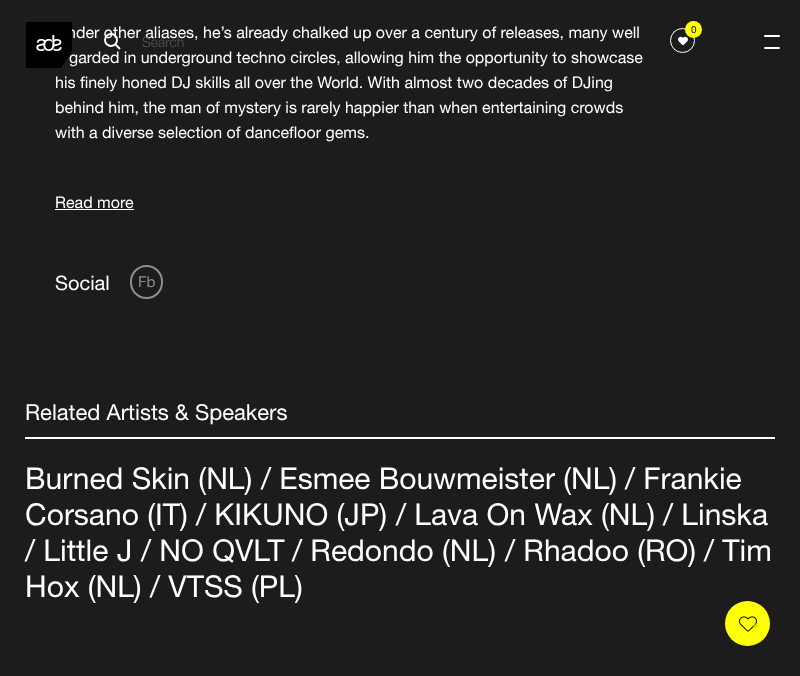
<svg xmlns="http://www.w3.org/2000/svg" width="800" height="676">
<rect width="100%" height="100%" fill="#1c1c1c"/>
<text x="67" y="38" style="font-family:Helvetica Neue;font-size:16px;fill:#fff">nder other aliases, he’s already chalked up over a century of releases, many well</text>
<text x="69" y="63" style="font-family:Helvetica Neue;font-size:16px;fill:#fff">garded in underground techno circles, allowing him the opportunity to showcase</text>
<text x="55" y="88" style="font-family:Helvetica Neue;font-size:16px;fill:#fff">his finely honed DJ skills all over the World. With almost two decades of DJing</text>
<text x="55" y="113" style="font-family:Helvetica Neue;font-size:16px;fill:#fff">behind him, the man of mystery is rarely happier than when entertaining crowds</text>
<text x="55" y="138" style="font-family:Helvetica Neue;font-size:16px;fill:#fff">with a diverse selection of dancefloor gems.</text>
<text x="55" y="208" style="font-family:Helvetica Neue;font-size:16px;fill:#fff">Read more</text>
<rect x="55" y="209" width="79" height="1" fill="#fff"/>
<text x="55" y="290" style="font-family:Helvetica Neue;font-size:20px;fill:#fff">Social</text>
<rect x="131" y="266" width="31" height="32" rx="15.5" fill="none" stroke="#8e8e8e" stroke-width="2"/>
<text x="138" y="287" style="font-family:Helvetica Neue;font-size:15px;fill:#8e8e8e">Fb</text>
<rect x="25" y="437" width="750" height="2" fill="#fff"/>
<text x="25" y="420" style="font-family:Helvetica Neue;font-size:22px;fill:#fff">Related Artists &amp; Speakers</text>
<text x="25" y="489" style="font-family:Helvetica Neue;font-size:30px;fill:#fff">Burned Skin (NL)</text>
<text x="261" y="489" style="font-family:Helvetica Neue;font-size:30px;fill:#fff">/ Esmee Bouwmeister (NL)</text>
<text x="625" y="489" style="font-family:Helvetica Neue;font-size:30px;fill:#fff">/ Frankie</text>
<text x="25" y="525" style="font-family:Helvetica Neue;font-size:30px;fill:#fff">Corsano (IT)</text>
<text x="196" y="525" style="font-family:Helvetica Neue;font-size:30px;fill:#fff">/ KIKUNO (JP)</text>
<text x="396" y="525" style="font-family:Helvetica Neue;font-size:30px;fill:#fff">/ Lava On Wax (NL)</text>
<text x="663" y="525" style="font-family:Helvetica Neue;font-size:30px;fill:#fff">/ Linska</text>
<text x="25" y="561" style="font-family:Helvetica Neue;font-size:30px;fill:#fff">/ Little J</text>
<text x="141" y="561" style="font-family:Helvetica Neue;font-size:30px;fill:#fff">/ NO QVLT</text>
<text x="292" y="561" style="font-family:Helvetica Neue;font-size:30px;fill:#fff">/ Redondo (NL)</text>
<text x="505" y="561" style="font-family:Helvetica Neue;font-size:30px;fill:#fff">/ Rhadoo (RO)</text>
<text x="704" y="561" style="font-family:Helvetica Neue;font-size:30px;fill:#fff">/ Tim</text>
<text x="25" y="597" style="font-family:Helvetica Neue;font-size:30px;fill:#fff">Hox (NL)</text>
<text x="150" y="597" style="font-family:Helvetica Neue;font-size:30px;fill:#fff">/ VTSS (PL)</text>
<image x="26" y="22" width="46" height="46" href="media/1.png"/>
<circle cx="682.5" cy="40.5" r="12" fill="none" stroke="#fff"/>
<image x="678" y="36" width="10" height="10" href="media/2.png"/>
<circle cx="693.5" cy="29.5" r="8.5" fill="#ffff07"/>
<text x="691" y="33" style="font-family:Liberation Sans;font-size:10px;fill:#000">0</text>
<path d="M120 49l-4.5-4.5" fill="none" stroke="#fff" stroke-width="1.9"/>
<circle cx="111" cy="40" r="6" fill="none" stroke="#fff" stroke-width="1.9"/>
<text x="142" y="47" style="font-family:Helvetica Neue;font-size:14px;font-weight:300;fill:#545454">Search</text>
<rect x="764" y="35" width="16" height="2" rx="1" fill="#fff"/>
<rect x="764" y="47" width="16" height="2" rx="1" fill="#fff"/>
<circle cx="747.5" cy="623.5" r="22.5" fill="#ffff07"/>
<image x="739" y="616" width="18" height="16" href="media/3.png"/>
<text x="751" y="630" style="font-family:Liberation Sans;font-size:13px;fill:#cccc06">+</text>
</svg>
